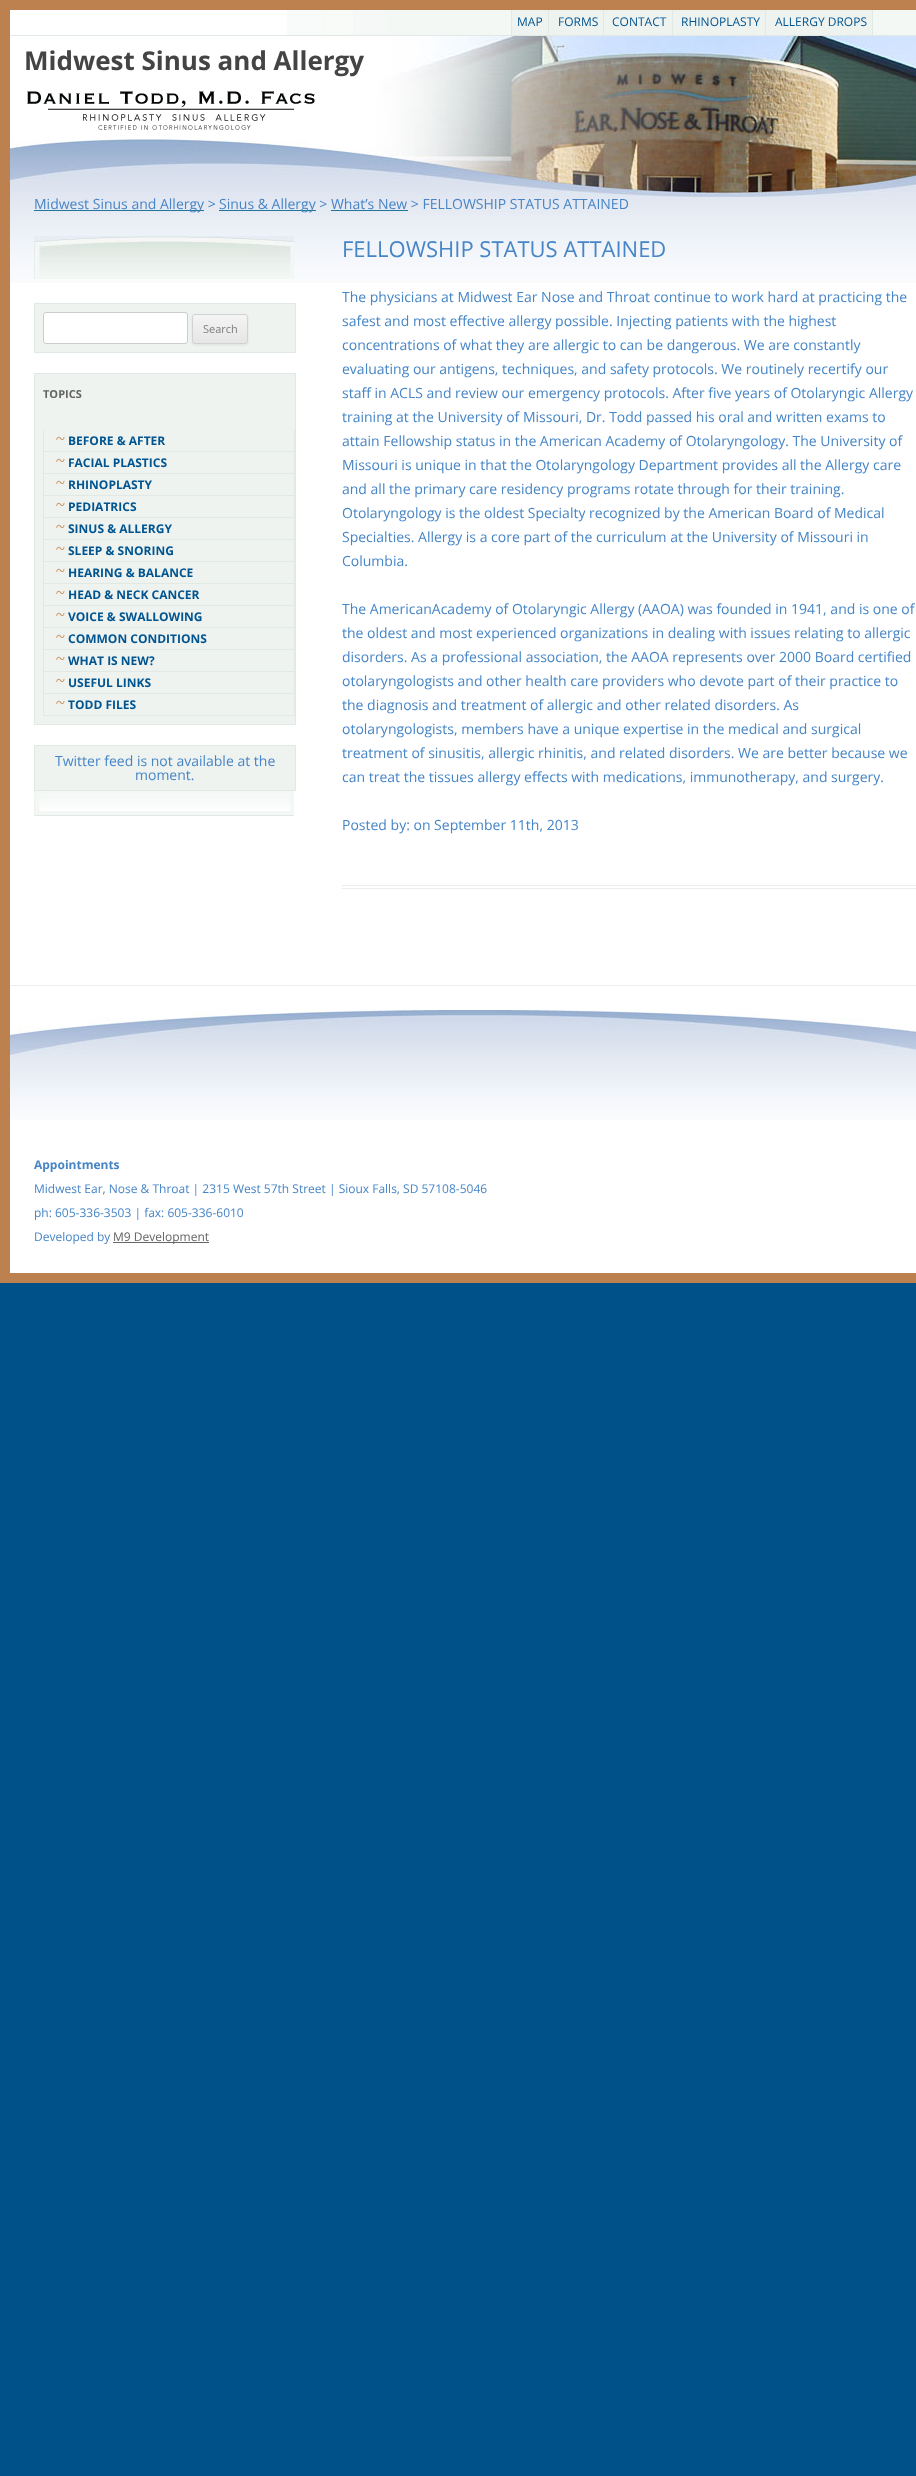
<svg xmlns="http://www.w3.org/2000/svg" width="916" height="2476">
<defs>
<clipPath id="clip1"><rect x="192" y="314" width="56" height="30" rx="3"/></clipPath>
<linearGradient id="g1" gradientUnits="userSpaceOnUse" x1="220" y1="315" x2="220" y2="343"><stop offset="0" stop-color="#f4f4f4"/><stop offset="1" stop-color="#e6e6e6"/></linearGradient>
</defs>
<rect width="100%" height="100%" fill="#005089"/>
<rect x="5" y="5" width="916" height="1273" fill="#fff" stroke="#bc814e" stroke-width="10"/>
<image x="287" y="10" width="629" height="25" href="media/1.png"/>
<rect x="10" y="35" width="906" height="1" fill="#e0e9e3"/>
<rect x="512" y="10" width="360" height="25" fill="#eff3f0"/>
<rect x="511" y="10" width="1" height="25" fill="#e0e9e3"/>
<rect x="548" y="10" width="1" height="25" fill="#e0e9e3"/>
<text x="517" y="26" style="font-family:Open Sans;font-size:12px;fill:#00548f">MAP</text>
<rect x="603" y="10" width="1" height="25" fill="#e0e9e3"/>
<text x="558" y="26" style="font-family:Open Sans;font-size:12px;fill:#00548f">FORMS</text>
<rect x="672" y="10" width="1" height="25" fill="#e0e9e3"/>
<text x="612" y="26" style="font-family:Open Sans;font-size:12px;fill:#00548f">CONTACT</text>
<rect x="765" y="10" width="1" height="25" fill="#e0e9e3"/>
<text x="681" y="26" style="font-family:Open Sans;font-size:12px;fill:#00548f">RHINOPLASTY</text>
<rect x="872" y="10" width="1" height="25" fill="#e0e9e3"/>
<text x="775" y="26" style="font-family:Open Sans;font-size:12px;fill:#00548f">ALLERGY DROPS</text>
<image x="10" y="36" width="906" height="161" href="media/2.png"/>
<text x="24" y="70" style="font-family:Open Sans;font-size:26px;font-weight:bold;fill:#444">Midwest Sinus and Allergy</text>
<image x="27" y="91" width="288" height="39" href="media/3.png"/>
<image x="10" y="197" width="906" height="86" href="media/4.png"/>
<rect x="34" y="210" width="170" height="1" fill="#21759b"/>
<text x="34" y="209" style="font-family:Open Sans;font-size:14px;fill:#4685c6">Midwest Sinus and Allergy &gt;</text>
<rect x="219" y="210" width="97" height="1" fill="#21759b"/>
<text x="219" y="209" style="font-family:Open Sans;font-size:14px;fill:#4685c6">Sinus &amp; Allergy &gt; What’s New &gt; FELLOWSHIP STATUS ATTAINED</text>
<rect x="331" y="210" width="77" height="1" fill="#21759b"/>
<image x="34" y="236" width="260" height="43" href="media/5.png"/>
<rect x="342" y="885" width="574" height="1" fill="#ededed"/>
<rect x="342" y="888" width="574" height="1" fill="#ededed"/>
<text x="342" y="257" style="font-family:Open Sans;font-size:22px;fill:#4685c6">FELLOWSHIP STATUS ATTAINED</text>
<text x="342" y="302" style="font-family:Open Sans;font-size:14px;fill:#4685c6">The physicians at Midwest Ear Nose and Throat continue to work hard at practicing the</text>
<text x="342" y="326" style="font-family:Open Sans;font-size:14px;fill:#4685c6">safest and most effective allergy possible. Injecting patients with the highest</text>
<text x="342" y="350" style="font-family:Open Sans;font-size:14px;fill:#4685c6">concentrations of what they are allergic to can be dangerous. We are constantly</text>
<text x="342" y="374" style="font-family:Open Sans;font-size:14px;fill:#4685c6">evaluating our antigens, techniques, and safety protocols. We routinely recertify our</text>
<text x="342" y="398" style="font-family:Open Sans;font-size:14px;fill:#4685c6">staff in ACLS and review our emergency protocols. After five years of Otolaryngic Allergy</text>
<text x="342" y="422" style="font-family:Open Sans;font-size:14px;fill:#4685c6">training at the University of Missouri, Dr. Todd passed his oral and written exams to</text>
<text x="342" y="446" style="font-family:Open Sans;font-size:14px;fill:#4685c6">attain Fellowship status in the American Academy of Otolaryngology. The University of</text>
<text x="342" y="470" style="font-family:Open Sans;font-size:14px;fill:#4685c6">Missouri is unique in that the Otolaryngology Department provides all the Allergy care</text>
<text x="342" y="494" style="font-family:Open Sans;font-size:14px;fill:#4685c6">and all the primary care residency programs rotate through for their training.</text>
<text x="342" y="518" style="font-family:Open Sans;font-size:14px;fill:#4685c6">Otolaryngology is the oldest Specialty recognized by the American Board of Medical</text>
<text x="342" y="542" style="font-family:Open Sans;font-size:14px;fill:#4685c6">Specialties. Allergy is a core part of the curriculum at the University of Missouri in</text>
<text x="342" y="566" style="font-family:Open Sans;font-size:14px;fill:#4685c6">Columbia.</text>
<text x="342" y="614" style="font-family:Open Sans;font-size:14px;fill:#4685c6">The AmericanAcademy of Otolaryngic Allergy (AAOA) was founded in 1941, and is one of</text>
<text x="342" y="638" style="font-family:Open Sans;font-size:14px;fill:#4685c6">the oldest and most experienced organizations in dealing with issues relating to allergic</text>
<text x="342" y="662" style="font-family:Open Sans;font-size:14px;fill:#4685c6">disorders. As a professional association, the AAOA represents over 2000 Board certified</text>
<text x="342" y="686" style="font-family:Open Sans;font-size:14px;fill:#4685c6">otolaryngologists and other health care providers who devote part of their practice to</text>
<text x="342" y="710" style="font-family:Open Sans;font-size:14px;fill:#4685c6">the diagnosis and treatment of allergic and other related disorders. As</text>
<text x="342" y="734" style="font-family:Open Sans;font-size:14px;fill:#4685c6">otolaryngologists, members have a unique expertise in the medical and surgical</text>
<text x="342" y="758" style="font-family:Open Sans;font-size:14px;fill:#4685c6">treatment of sinusitis, allergic rhinitis, and related disorders. We are better because we</text>
<text x="342" y="782" style="font-family:Open Sans;font-size:14px;fill:#4685c6">can treat the tissues allergy effects with medications, immunotherapy, and surgery.</text>
<text x="342" y="830" style="font-family:Open Sans;font-size:14px;fill:#4685c6">Posted by: on September 11th, 2013</text>
<rect x="34.5" y="303.5" width="261" height="49" fill="#eff3f0" stroke="#e0e9e3"/>
<rect x="43.5" y="312.5" width="144" height="31" rx="2.5" fill="#fff" stroke="#ccc"/>
<rect x="192" y="315" width="56" height="30" rx="3" fill="#4040401a" filter="blur(1px)"/>
<g clip-path="url(#clip1)">
<rect x="192" y="315" width="56" height="28" fill="url(#g1)"/>
</g>
<rect x="192.5" y="314.5" width="55" height="29" rx="2.5" fill="none" stroke="#d2d2d2"/>
<text x="203" y="333" style="font-family:Open Sans;font-size:11px;fill:#7c7c7c">Search</text>
<rect x="34.5" y="373.5" width="261" height="351" fill="#eff3f0" stroke="#e0e9e3"/>
<text x="43" y="398" style="font-family:Open Sans;font-size:11px;font-weight:bold;fill:#636363">TOPICS</text>
<rect x="294" y="430" width="1" height="286" fill="#e0e9e3"/>
<rect x="43" y="451" width="252" height="1" fill="#e0e9e3"/>
<rect x="43" y="430" width="1" height="22" fill="#e0e9e3"/>
<image x="56" y="436" width="9" height="4" href="media/6.png"/>
<text x="68" y="445" style="font-family:Open Sans;font-size:12px;font-weight:bold;fill:#00548f">BEFORE &amp; AFTER</text>
<rect x="43" y="473" width="252" height="1" fill="#e0e9e3"/>
<rect x="43" y="452" width="1" height="22" fill="#e0e9e3"/>
<image x="56" y="458" width="9" height="4" href="media/6.png"/>
<text x="68" y="467" style="font-family:Open Sans;font-size:12px;font-weight:bold;fill:#00548f">FACIAL PLASTICS</text>
<rect x="43" y="495" width="252" height="1" fill="#e0e9e3"/>
<rect x="43" y="474" width="1" height="22" fill="#e0e9e3"/>
<image x="56" y="480" width="9" height="4" href="media/6.png"/>
<text x="68" y="489" style="font-family:Open Sans;font-size:12px;font-weight:bold;fill:#00548f">RHINOPLASTY</text>
<rect x="43" y="517" width="252" height="1" fill="#e0e9e3"/>
<rect x="43" y="496" width="1" height="22" fill="#e0e9e3"/>
<image x="56" y="502" width="9" height="4" href="media/6.png"/>
<text x="68" y="511" style="font-family:Open Sans;font-size:12px;font-weight:bold;fill:#00548f">PEDIATRICS</text>
<rect x="43" y="539" width="252" height="1" fill="#e0e9e3"/>
<rect x="43" y="518" width="1" height="22" fill="#e0e9e3"/>
<image x="56" y="524" width="9" height="4" href="media/6.png"/>
<text x="68" y="533" style="font-family:Open Sans;font-size:12px;font-weight:bold;fill:#00548f">SINUS &amp; ALLERGY</text>
<rect x="43" y="561" width="252" height="1" fill="#e0e9e3"/>
<rect x="43" y="540" width="1" height="22" fill="#e0e9e3"/>
<image x="56" y="546" width="9" height="4" href="media/6.png"/>
<text x="68" y="555" style="font-family:Open Sans;font-size:12px;font-weight:bold;fill:#00548f">SLEEP &amp; SNORING</text>
<rect x="43" y="583" width="252" height="1" fill="#e0e9e3"/>
<rect x="43" y="562" width="1" height="22" fill="#e0e9e3"/>
<image x="56" y="568" width="9" height="4" href="media/6.png"/>
<text x="68" y="577" style="font-family:Open Sans;font-size:12px;font-weight:bold;fill:#00548f">HEARING &amp; BALANCE</text>
<rect x="43" y="605" width="252" height="1" fill="#e0e9e3"/>
<rect x="43" y="584" width="1" height="22" fill="#e0e9e3"/>
<image x="56" y="590" width="9" height="4" href="media/6.png"/>
<text x="68" y="599" style="font-family:Open Sans;font-size:12px;font-weight:bold;fill:#00548f">HEAD &amp; NECK CANCER</text>
<rect x="43" y="627" width="252" height="1" fill="#e0e9e3"/>
<rect x="43" y="606" width="1" height="22" fill="#e0e9e3"/>
<image x="56" y="612" width="9" height="4" href="media/6.png"/>
<text x="68" y="621" style="font-family:Open Sans;font-size:12px;font-weight:bold;fill:#00548f">VOICE &amp; SWALLOWING</text>
<rect x="43" y="649" width="252" height="1" fill="#e0e9e3"/>
<rect x="43" y="628" width="1" height="22" fill="#e0e9e3"/>
<image x="56" y="634" width="9" height="4" href="media/6.png"/>
<text x="68" y="643" style="font-family:Open Sans;font-size:12px;font-weight:bold;fill:#00548f">COMMON CONDITIONS</text>
<rect x="43" y="671" width="252" height="1" fill="#e0e9e3"/>
<rect x="43" y="650" width="1" height="22" fill="#e0e9e3"/>
<image x="56" y="656" width="9" height="4" href="media/6.png"/>
<text x="68" y="665" style="font-family:Open Sans;font-size:12px;font-weight:bold;fill:#00548f">WHAT IS NEW?</text>
<rect x="43" y="693" width="252" height="1" fill="#e0e9e3"/>
<rect x="43" y="672" width="1" height="22" fill="#e0e9e3"/>
<image x="56" y="678" width="9" height="4" href="media/6.png"/>
<text x="68" y="687" style="font-family:Open Sans;font-size:12px;font-weight:bold;fill:#00548f">USEFUL LINKS</text>
<rect x="43" y="715" width="252" height="1" fill="#e0e9e3"/>
<rect x="43" y="694" width="1" height="22" fill="#e0e9e3"/>
<image x="56" y="700" width="9" height="4" href="media/6.png"/>
<text x="68" y="709" style="font-family:Open Sans;font-size:12px;font-weight:bold;fill:#00548f">TODD FILES</text>
<rect x="34.5" y="745.5" width="261" height="45" fill="#eff3f0" stroke="#e0e9e3"/>
<text x="55" y="766" style="font-family:Open Sans;font-size:14px;fill:#4685c6">Twitter feed is not available at the</text>
<text x="135" y="780" style="font-family:Open Sans;font-size:14px;fill:#4685c6">moment.</text>
<image x="34" y="791" width="260" height="25" href="media/7.png"/>
<rect x="10" y="985" width="906" height="1" fill="#ededed"/>
<image x="10" y="1010" width="906" height="110" href="media/8.png"/>
<text x="34" y="1169" style="font-family:Open Sans;font-size:12px;font-weight:bold;fill:#4685c6">Appointments</text>
<text x="34" y="1193" style="font-family:Open Sans;font-size:12px;fill:#4685c6">Midwest Ear, Nose &amp; Throat | 2315 West 57th Street | Sioux Falls, SD 57108-5046</text>
<text x="34" y="1217" style="font-family:Open Sans;font-size:12px;fill:#4685c6">ph: 605-336-3503 | fax: 605-336-6010</text>
<text x="34" y="1241" style="font-family:Open Sans;font-size:12px;fill:#4685c6">Developed by</text>
<rect x="113" y="1242" width="96" height="1" fill="#686868"/>
<text x="113" y="1241" style="font-family:Open Sans;font-size:12px;fill:#636363">M9 Development</text>
</svg>
